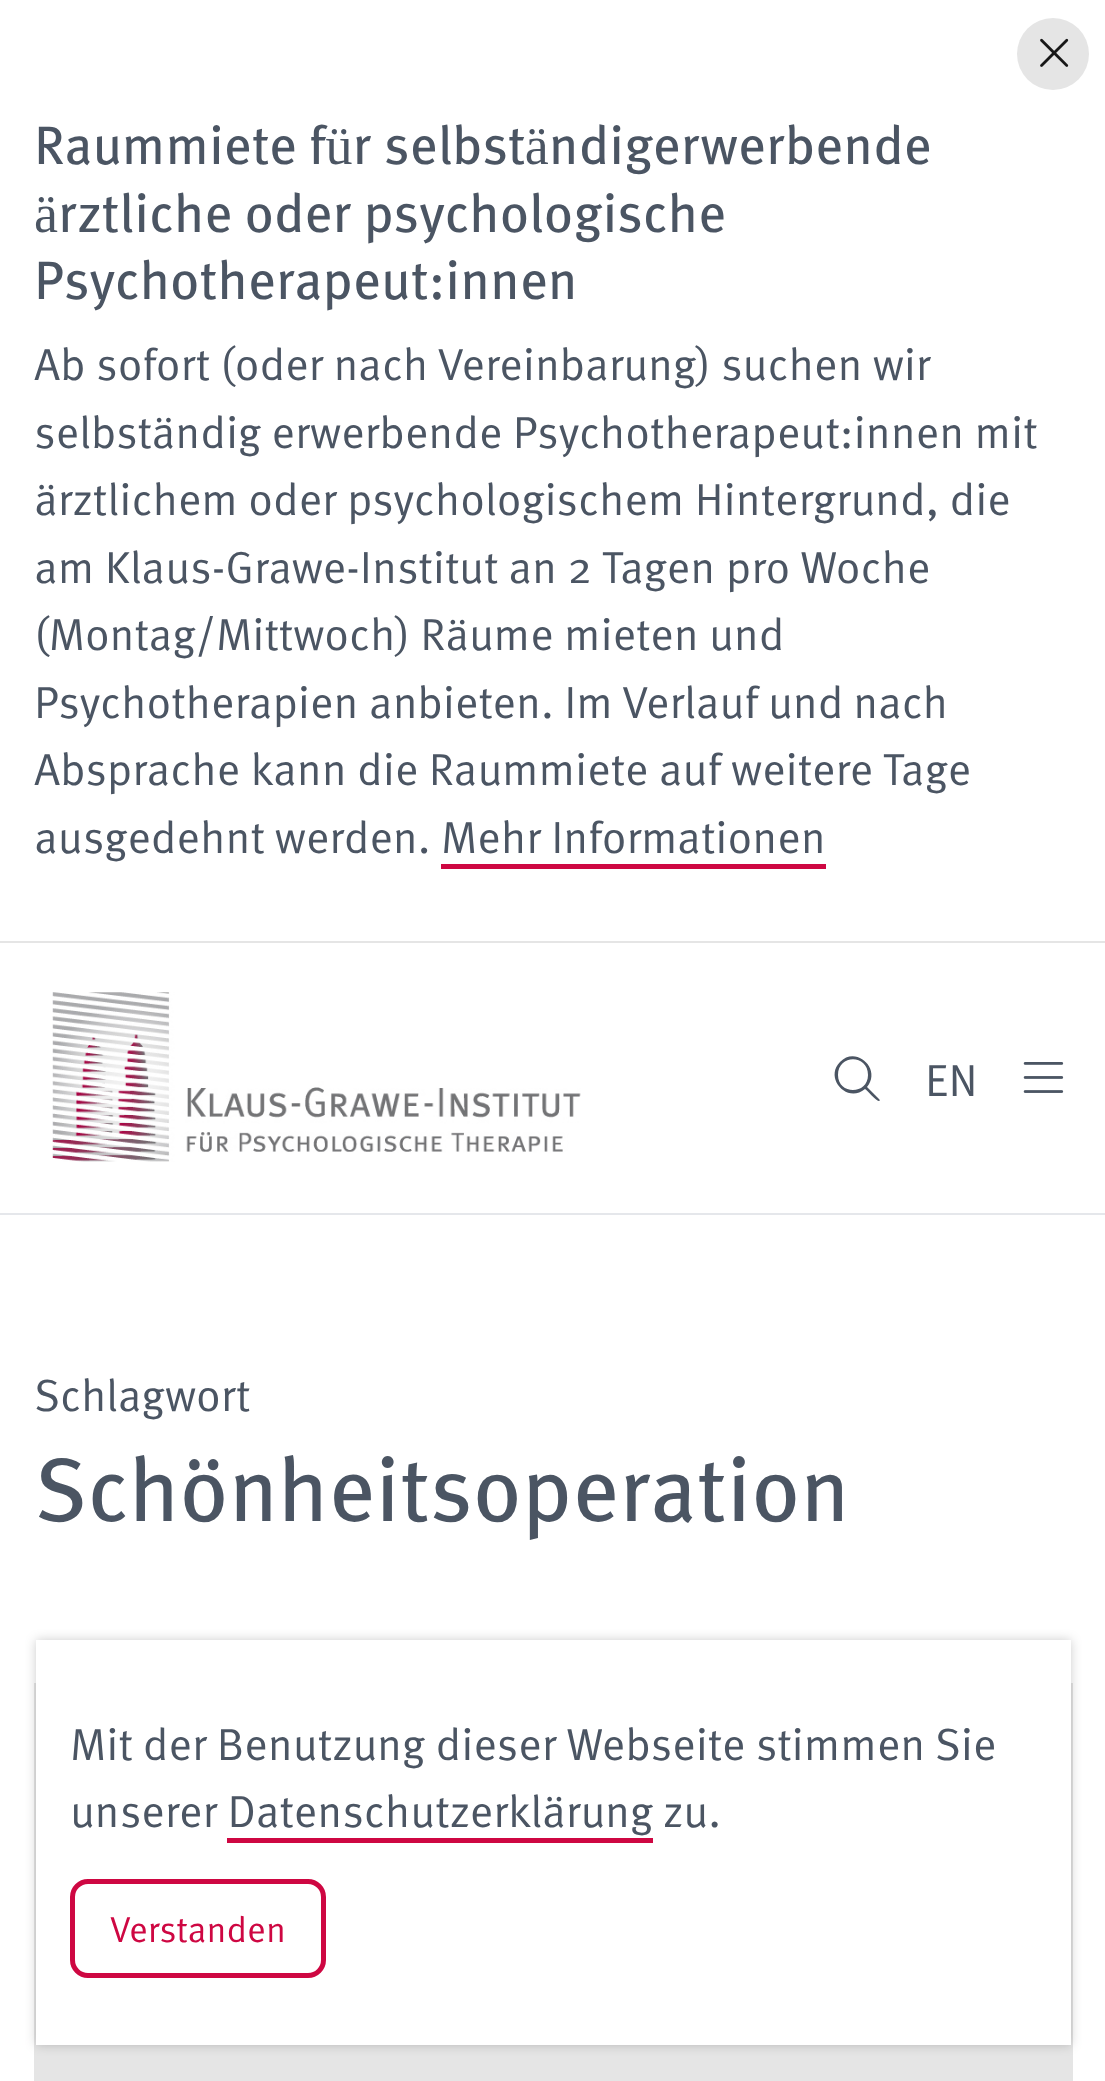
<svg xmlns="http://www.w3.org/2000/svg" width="1105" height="2081">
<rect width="100%" height="100%" fill="#fff"/>
<rect y="941" width="1105" height="2" fill="#e5e5e5"/>
<circle cx="1053" cy="54" r="36" fill="#e5e5e5"/>
<image x="1040" y="38" width="29" height="29" href="media/1.png"/>
<text x="34" y="164" style="font-family:'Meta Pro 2';font-size:54px;fill:#4b5563">Raummiete für selbständigerwerbende</text>
<text x="34" y="232" style="font-family:'Meta Pro 2';font-size:54px;fill:#4b5563">ärztliche oder psychologische</text>
<text x="34" y="299" style="font-family:'Meta Pro 2';font-size:54px;fill:#4b5563">Psychotherapeut:innen</text>
<text x="34" y="380" style="font-family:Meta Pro;font-size:45px;fill:#4b5563">Ab sofort (oder nach Vereinbarung) suchen wir</text>
<text x="34" y="448" style="font-family:Meta Pro;font-size:45px;fill:#4b5563">selbständig erwerbende Psychotherapeut:innen mit</text>
<text x="34" y="515" style="font-family:Meta Pro;font-size:45px;fill:#4b5563">ärztlichem oder psychologischem Hintergrund, die</text>
<text x="34" y="583" style="font-family:Meta Pro;font-size:45px;fill:#4b5563">am Klaus-Grawe-Institut an 2 Tagen pro Woche</text>
<text x="34" y="650" style="font-family:Meta Pro;font-size:45px;fill:#4b5563">(Montag/Mittwoch) Räume mieten und</text>
<text x="34" y="718" style="font-family:Meta Pro;font-size:45px;fill:#4b5563">Psychotherapien anbieten. Im Verlauf und nach</text>
<text x="34" y="785" style="font-family:Meta Pro;font-size:45px;fill:#4b5563">Absprache kann die Raummiete auf weitere Tage</text>
<text x="34" y="853" style="font-family:Meta Pro;font-size:45px;fill:#4b5563">ausgedehnt werden. Mehr Informationen</text>
<rect x="441" y="864" width="385" height="5" fill="#ce0742"/>
<rect y="1213" width="1105" height="2" fill="#e5e7eb"/>
<image x="52" y="992" width="529" height="170" href="media/2.png"/>
<path d="M868 1075c0-21-30-21-30 0c0 20 30 20 30 0zm-3 14c-18 15-41-11-25-27c16-17 42 7 27 25l12 12c1 1 1 2 0 2c-2 1-12-11-14-12z" fill="#4b5563"/>
<text x="925" y="1096" style="font-family:Meta Pro;font-size:45px;fill:#4b5563">EN</text>
<image x="1023" y="1062" width="41" height="31" href="media/3.png"/>
<text x="34" y="1411" style="font-family:Meta Pro;font-size:45px;fill:#4b5563">Schlagwort</text>
<text x="34" y="1521" style="font-family:'Meta Pro 2';font-size:90px;fill:#4b5563">Schönheitsoperation</text>
<rect x="35" y="1684" width="1037" height="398" fill="none" stroke="#e5e5e5" stroke-width="2"/>
<rect x="36" y="2045" width="1035" height="36" fill="#e5e5e5"/>
<rect x="36" y="1640" width="1035" height="405" fill="#00000033" filter="blur(5.5px)"/>
<rect x="36" y="1640" width="1035" height="405" fill="#fff"/>
<text x="70" y="1760" style="font-family:Meta Pro;font-size:45px;fill:#4b5563">Mit der Benutzung dieser Webseite stimmen Sie</text>
<text x="70" y="1827" style="font-family:Meta Pro;font-size:45px;fill:#4b5563">unserer Datenschutzerklärung</text>
<text x="663" y="1827" style="font-family:Meta Pro;font-size:45px;fill:#4b5563">zu.</text>
<rect x="227" y="1838" width="426" height="5" fill="#ce0742"/>
<rect x="72.5" y="1881.5" width="251" height="94" rx="15.5" fill="none" stroke="#ce0742" stroke-width="5"/>
<text x="110" y="1942" style="font-family:Meta Pro;font-size:36px;fill:#ce0742">Verstanden</text>
</svg>
